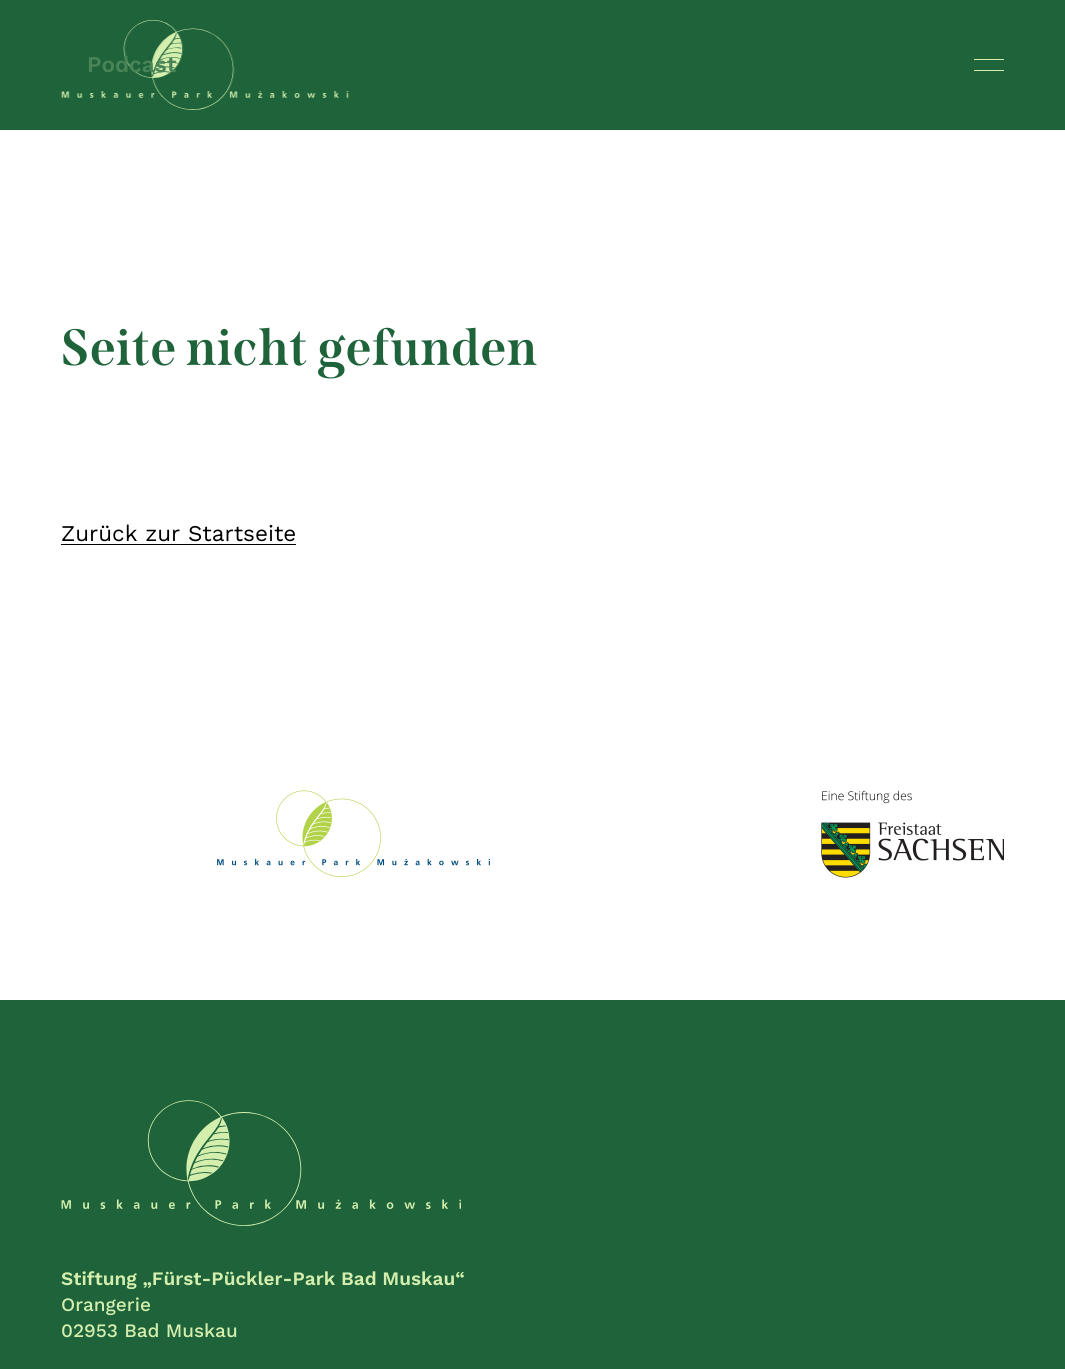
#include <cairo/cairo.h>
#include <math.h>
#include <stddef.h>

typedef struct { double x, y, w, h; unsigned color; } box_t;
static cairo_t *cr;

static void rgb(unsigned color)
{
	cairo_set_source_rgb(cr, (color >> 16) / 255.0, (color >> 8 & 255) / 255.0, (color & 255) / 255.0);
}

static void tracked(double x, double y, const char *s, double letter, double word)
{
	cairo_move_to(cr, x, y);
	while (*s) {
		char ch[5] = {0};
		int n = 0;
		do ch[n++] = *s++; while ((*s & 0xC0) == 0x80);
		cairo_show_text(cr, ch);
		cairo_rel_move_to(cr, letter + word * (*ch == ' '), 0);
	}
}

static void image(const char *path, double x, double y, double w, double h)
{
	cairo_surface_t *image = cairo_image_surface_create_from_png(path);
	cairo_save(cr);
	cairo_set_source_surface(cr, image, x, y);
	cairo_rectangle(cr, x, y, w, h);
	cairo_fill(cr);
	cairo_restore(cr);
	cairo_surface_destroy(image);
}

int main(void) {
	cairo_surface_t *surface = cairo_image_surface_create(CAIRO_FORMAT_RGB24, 1065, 1369);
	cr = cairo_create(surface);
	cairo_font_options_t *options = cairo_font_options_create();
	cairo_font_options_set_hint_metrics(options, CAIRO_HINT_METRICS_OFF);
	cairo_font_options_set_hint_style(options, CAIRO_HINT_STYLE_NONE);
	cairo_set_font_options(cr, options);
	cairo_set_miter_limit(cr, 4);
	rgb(0x1e633a);
	cairo_paint(cr);
	image("img/1.png", 61, 20, 288, 90);
	{
		static const box_t items[] = {
			{974, 59, 30, 1, 0xd3eead},
			{974, 70, 30, 1, 0xd3eead},
			{0, 130, 1065, 870, 0xffffff},
			{61, 544, 235, 1, 0x000000},
		};
		for (size_t i = 0; i < sizeof items / sizeof *items; i++) {
			rgb(items[i].color);
			cairo_rectangle(cr, items[i].x, items[i].y, items[i].w, items[i].h);
			cairo_fill(cr);
		}
	}
	image("img/2.png", 217, 790, 273, 87);
	image("img/3.png", 821, 790, 183, 88);
	image("img/4.png", 61, 1100, 400, 126);
	cairo_select_font_face(cr, "Work Sans SemiBold", CAIRO_FONT_SLANT_NORMAL, CAIRO_FONT_WEIGHT_NORMAL);
	cairo_set_font_size(cr, 22.5);
	rgb(0x498456);
	cairo_move_to(cr, 87, 72);
	cairo_show_text(cr, "Podcast");
	cairo_select_font_face(cr, "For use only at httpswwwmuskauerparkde", CAIRO_FONT_SLANT_NORMAL, CAIRO_FONT_WEIGHT_BOLD);
	cairo_set_font_size(cr, 50.75);
	rgb(0x1e633a);
	tracked(61, 365, "Seite nicht gefunden", 0.5, 0);
	cairo_select_font_face(cr, "Work Sans", CAIRO_FONT_SLANT_NORMAL, CAIRO_FONT_WEIGHT_NORMAL);
	cairo_set_font_size(cr, 22.5);
	rgb(0x000000);
	cairo_move_to(cr, 61, 541);
	cairo_show_text(cr, "Zurück zur Startseite");
	cairo_select_font_face(cr, "Work Sans SemiBold", CAIRO_FONT_SLANT_NORMAL, CAIRO_FONT_WEIGHT_NORMAL);
	cairo_set_font_size(cr, 19);
	rgb(0xd3eead);
	cairo_move_to(cr, 61, 1285);
	cairo_show_text(cr, "Stiftung „Fürst-Pückler-Park Bad Muskau“");
	cairo_select_font_face(cr, "Work Sans Medium", CAIRO_FONT_SLANT_NORMAL, CAIRO_FONT_WEIGHT_NORMAL);
	cairo_move_to(cr, 61, 1311);
	cairo_show_text(cr, "Orangerie");
	cairo_move_to(cr, 61, 1337);
	cairo_show_text(cr, "02953 Bad Muskau");
	cairo_surface_write_to_png(surface, "page.png");
	cairo_font_options_destroy(options);
	cairo_destroy(cr);
	cairo_surface_destroy(surface);
	return 0;
}
